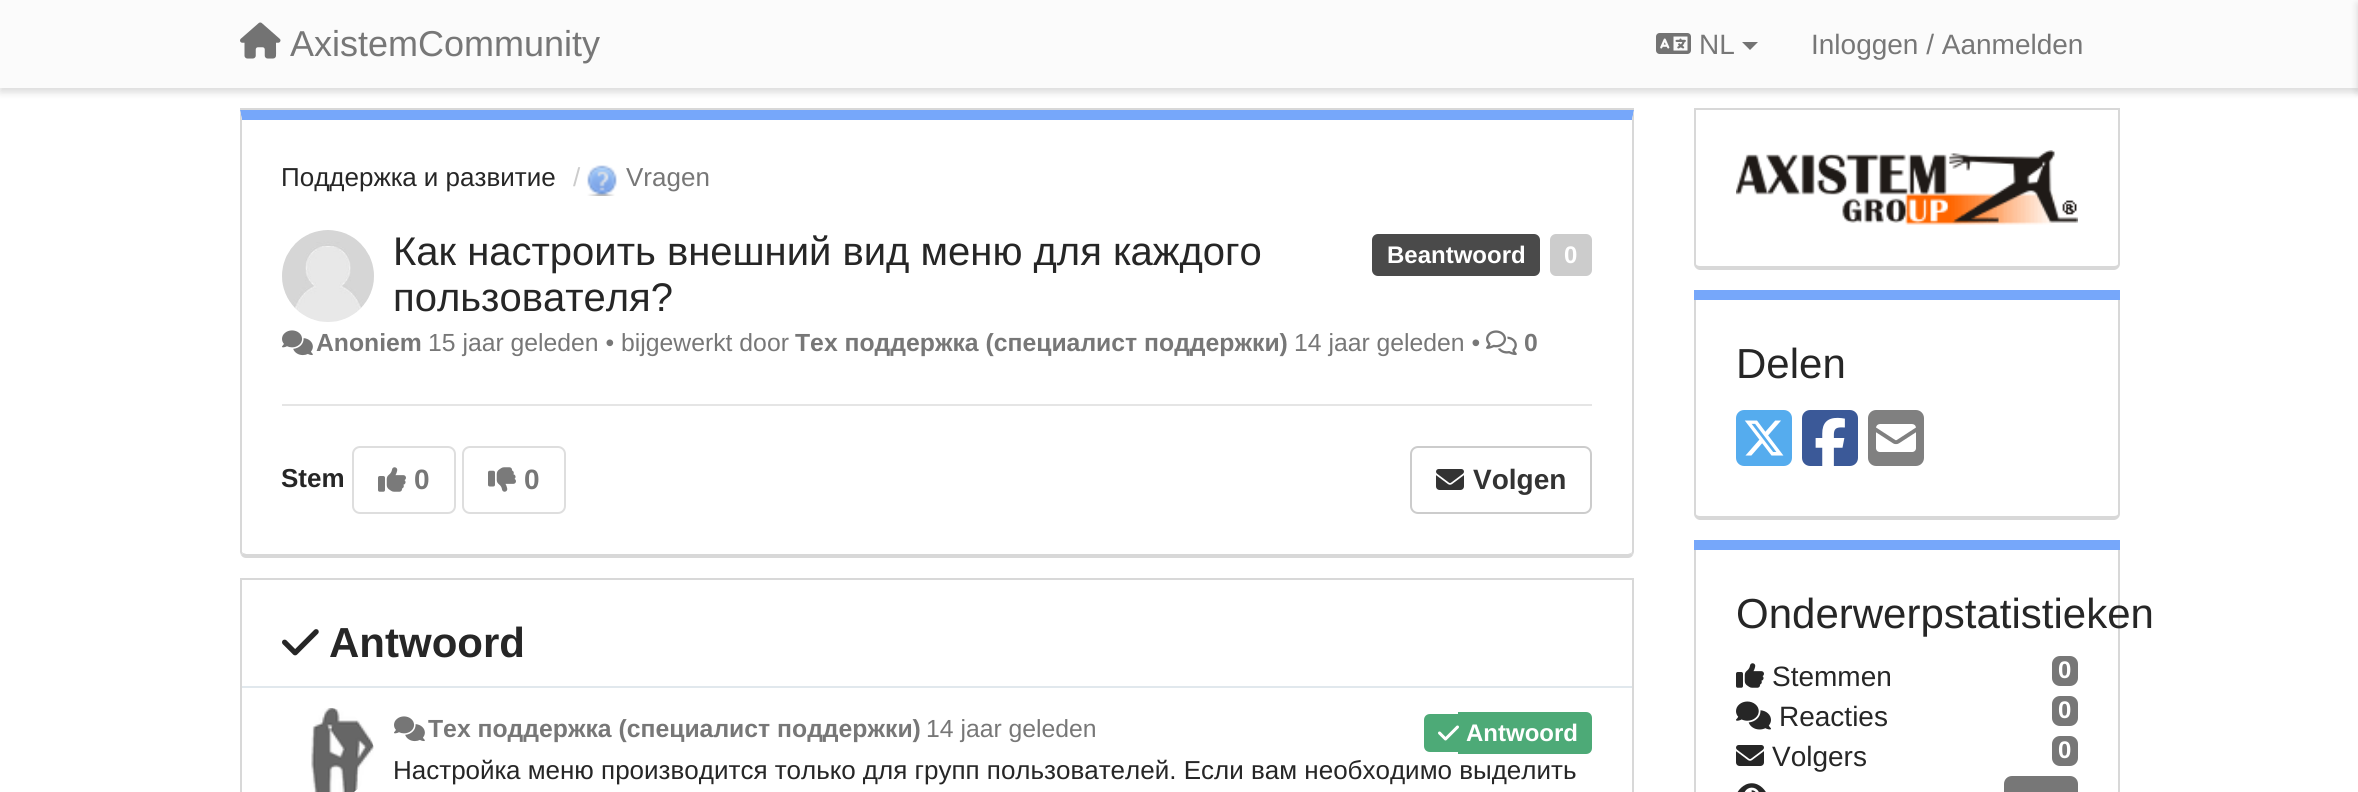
#include <cairo/cairo.h>
#include <math.h>
#include <stddef.h>

static cairo_t *cr;

static void rgb(unsigned color)
{
	cairo_set_source_rgb(cr, (color >> 16) / 255.0, (color >> 8 & 255) / 255.0, (color & 255) / 255.0);
}

static void rrect(double x, double y, double w, double h, double r)
{
	cairo_new_sub_path(cr);
	cairo_arc(cr, x + w - r, y + h - r, r, 0, M_PI / 2);
	cairo_arc(cr, x + r, y + h - r, r, M_PI / 2, M_PI);
	cairo_arc(cr, x + r, y + r, r, M_PI, 1.5 * M_PI);
	cairo_arc(cr, x + w - r, y + r, r, 1.5 * M_PI, 2 * M_PI);
	cairo_close_path(cr);
}

static void soft_shadow(double x, double y, double w, double h, double r, double blur, double alpha)
{
	cairo_push_group_with_content(cr, CAIRO_CONTENT_ALPHA);
	cairo_set_operator(cr, CAIRO_OPERATOR_SOURCE);
	for (int i = 15; i >= -15 && fmin(w, h) + blur * i / 3 > 0; i -= 2) {
		double e = blur * i / 6;
		cairo_set_source_rgba(cr, 0, 0, 0, alpha * erfc((i - 1) / 8.5) / 2);
		rrect(x - e, y - e, w + 2 * e, h + 2 * e, fmax(0, fmin(r + e + blur * .6, fmin(w, h) / 2 + e)));
		cairo_fill(cr);
	}
	cairo_pattern_t *soft = cairo_pop_group(cr);
	cairo_mask(cr, soft);
	cairo_pattern_destroy(soft);
}

static void image(const char *path, double x, double y, double w, double h)
{
	cairo_surface_t *image = cairo_image_surface_create_from_png(path);
	cairo_save(cr);
	cairo_set_source_surface(cr, image, x, y);
	cairo_rectangle(cr, x, y, w, h);
	cairo_fill(cr);
	cairo_restore(cr);
	cairo_surface_destroy(image);
}

int main(void) {
	cairo_surface_t *surface = cairo_image_surface_create(CAIRO_FORMAT_RGB24, 2358, 792);
	cr = cairo_create(surface);
	cairo_font_options_t *options = cairo_font_options_create();
	cairo_font_options_set_hint_metrics(options, CAIRO_HINT_METRICS_OFF);
	cairo_font_options_set_hint_style(options, CAIRO_HINT_STYLE_NONE);
	cairo_set_font_options(cr, options);
	cairo_set_miter_limit(cr, 4);
	rgb(0xffffff);
	cairo_paint(cr);
	rgb(0x000000);
	soft_shadow(0, 4, 2358, 88, 0, 4, 0.15);
	rgb(0xfbfbfb);
	cairo_rectangle(cr, 0, 0, 2358, 88);
	cairo_fill(cr);
	image("img/1.png", 240, 22, 41, 37);
	image("img/2.png", 1656, 33, 35, 21);
	rgb(0x737373);
	cairo_new_path(cr);
	cairo_move_to(cr, 1742, 42);
	cairo_line_to(cr, 1758, 42);
	cairo_line_to(cr, 1750, 50);
	cairo_close_path(cr);
	cairo_fill(cr);
	rgb(0x000000);
	soft_shadow(2358, 4, 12, 88, 0, 4, 0.15);
	rgb(0xd8d8d8);
	cairo_rectangle(cr, 240, 108, 1394, 2);
	cairo_fill(cr);
	rgb(0x76a7fa);
	cairo_new_path(cr);
	cairo_move_to(cr, 240, 110);
	cairo_line_to(cr, 242, 120);
	cairo_line_to(cr, 1632, 120);
	cairo_line_to(cr, 1634, 110);
	cairo_close_path(cr);
	cairo_fill(cr);
	rgb(0xd8d8d8);
	cairo_new_path(cr);
	cairo_move_to(cr, 1634, 110);
	cairo_line_to(cr, 1632, 120);
	cairo_line_to(cr, 1632, 552);
	cairo_line_to(cr, 1631, 553);
	cairo_line_to(cr, 1633, 555);
	cairo_line_to(cr, 1634, 552);
	cairo_close_path(cr);
	cairo_fill(cr);
	cairo_new_path(cr);
	cairo_move_to(cr, 246, 558);
	cairo_line_to(cr, 1628, 558);
	cairo_curve_to(cr, 1630, 558, 1632, 557, 1633, 555);
	cairo_line_to(cr, 1631, 553);
	cairo_line_to(cr, 1628, 554);
	cairo_line_to(cr, 246, 554);
	cairo_line_to(cr, 243, 553);
	cairo_line_to(cr, 241, 555);
	cairo_curve_to(cr, 242, 557, 244, 558, 246, 558);
	cairo_close_path(cr);
	cairo_fill(cr);
	cairo_new_path(cr);
	cairo_move_to(cr, 242, 120);
	cairo_line_to(cr, 240, 110);
	cairo_line_to(cr, 240, 552);
	cairo_line_to(cr, 241, 555);
	cairo_line_to(cr, 243, 553);
	cairo_line_to(cr, 242, 552);
	cairo_close_path(cr);
	cairo_fill(cr);
	image("img/3.png", 587, 165, 30, 31);
	image("img/4.png", 282, 230, 92, 92);
	rgb(0x4a4a4a);
	rrect(1372, 234, 168, 42, 6);
	cairo_fill(cr);
	rgb(0xcccccc);
	rrect(1550, 234, 42, 42, 6);
	cairo_fill(cr);
	image("img/5.png", 282, 330, 31, 26);
	image("img/6.png", 1486, 330, 31, 26);
	rgb(0xe5e5e5);
	cairo_rectangle(cr, 282, 404, 1310, 2);
	cairo_fill(cr);
	rrect(353, 447, 102, 66, 7);
	rgb(0xdedede);
	cairo_stroke(cr);
	image("img/7.png", 378, 467, 28, 25);
	rrect(463, 447, 102, 66, 7);
	cairo_stroke(cr);
	image("img/8.png", 488, 467, 28, 25);
	rrect(1411, 447, 180, 66, 7);
	rgb(0xcccccc);
	cairo_stroke(cr);
	image("img/9.png", 1436, 469, 28, 21);
	cairo_rectangle(cr, 241, 579, 1392, 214);
	rgb(0xd8d8d8);
	cairo_stroke(cr);
	image("img/10.png", 282, 629, 37, 27);
	rgb(0xe1e8ed);
	cairo_rectangle(cr, 242, 686, 1390, 2);
	cairo_fill(cr);
	image("img/11.png", 311, 708, 63, 84);
	image("img/5.png", 394, 716, 31, 26);
	rgb(0x4daa77);
	cairo_new_path(cr);
	cairo_move_to(cr, 1430, 714);
	cairo_line_to(cr, 1458, 714);
	cairo_line_to(cr, 1458, 752);
	cairo_line_to(cr, 1430, 752);
	cairo_curve_to(cr, 1426.5, 752, 1424, 749.5, 1424, 746);
	cairo_line_to(cr, 1424, 720);
	cairo_curve_to(cr, 1424, 716.5, 1426.5, 714, 1430, 714);
	cairo_close_path(cr);
	cairo_fill(cr);
	cairo_new_path(cr);
	cairo_move_to(cr, 1458, 712);
	cairo_line_to(cr, 1586, 712);
	cairo_curve_to(cr, 1589.5, 712, 1592, 714.5, 1592, 718);
	cairo_line_to(cr, 1592, 748);
	cairo_curve_to(cr, 1592, 751.5, 1589.5, 754, 1586, 754);
	cairo_line_to(cr, 1458, 754);
	cairo_close_path(cr);
	cairo_fill(cr);
	image("img/12.png", 1438, 725, 21, 16);
	rgb(0xd8d8d8);
	cairo_rectangle(cr, 1694, 108, 426, 2);
	cairo_fill(cr);
	cairo_set_fill_rule(cr, CAIRO_FILL_RULE_EVEN_ODD);
	cairo_new_path(cr);
	cairo_move_to(cr, 1694, 110);
	cairo_line_to(cr, 2120, 110);
	cairo_line_to(cr, 2120, 264);
	cairo_curve_to(cr, 2120, 267, 2117, 270, 2114, 270);
	cairo_line_to(cr, 1700, 270);
	cairo_curve_to(cr, 1697, 270, 1694, 267, 1694, 264);
	cairo_close_path(cr);
	cairo_move_to(cr, 1696, 110);
	cairo_line_to(cr, 2118, 110);
	cairo_line_to(cr, 2118, 264);
	cairo_curve_to(cr, 2118, 265, 2116, 266, 2114, 266);
	cairo_line_to(cr, 1700, 266);
	cairo_curve_to(cr, 1698, 266, 1696, 265, 1696, 264);
	cairo_close_path(cr);
	cairo_fill(cr);
	image("img/13.png", 1736, 150, 342, 75);
	rgb(0x76a7fa);
	cairo_rectangle(cr, 1694, 290, 426, 10);
	cairo_fill(cr);
	rgb(0xd8d8d8);
	cairo_new_path(cr);
	cairo_move_to(cr, 1694, 300);
	cairo_line_to(cr, 2120, 300);
	cairo_line_to(cr, 2120, 514);
	cairo_curve_to(cr, 2120, 517, 2117, 520, 2114, 520);
	cairo_line_to(cr, 1700, 520);
	cairo_curve_to(cr, 1697, 520, 1694, 517, 1694, 514);
	cairo_close_path(cr);
	cairo_move_to(cr, 1696, 300);
	cairo_line_to(cr, 2118, 300);
	cairo_line_to(cr, 2118, 514);
	cairo_curve_to(cr, 2118, 515, 2116, 516, 2114, 516);
	cairo_line_to(cr, 1700, 516);
	cairo_curve_to(cr, 1698, 516, 1696, 515, 1696, 514);
	cairo_close_path(cr);
	cairo_fill(cr);
	image("img/14.png", 1736, 410, 56, 56);
	image("img/15.png", 1802, 410, 56, 56);
	image("img/16.png", 1868, 410, 56, 56);
	rgb(0x76a7fa);
	cairo_rectangle(cr, 1694, 540, 426, 10);
	cairo_fill(cr);
	rgb(0xd8d8d8);
	cairo_new_path(cr);
	cairo_move_to(cr, 1694, 550);
	cairo_line_to(cr, 2120, 550);
	cairo_line_to(cr, 2120, 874);
	cairo_curve_to(cr, 2120, 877, 2117, 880, 2114, 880);
	cairo_line_to(cr, 1700, 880);
	cairo_curve_to(cr, 1697, 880, 1694, 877, 1694, 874);
	cairo_close_path(cr);
	cairo_move_to(cr, 1696, 550);
	cairo_line_to(cr, 2118, 550);
	cairo_line_to(cr, 2118, 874);
	cairo_curve_to(cr, 2118, 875, 2116, 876, 2114, 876);
	cairo_line_to(cr, 1700, 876);
	cairo_curve_to(cr, 1698, 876, 1696, 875, 1696, 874);
	cairo_close_path(cr);
	cairo_fill(cr);
	image("img/17.png", 1736, 663, 28, 25);
	rgb(0x777777);
	rrect(2052, 656, 26, 30, 8);
	cairo_fill(cr);
	image("img/18.png", 1736, 701, 35, 29);
	rrect(2052, 696, 26, 30, 8);
	cairo_fill(cr);
	image("img/19.png", 1736, 745, 28, 21);
	rrect(2052, 736, 26, 30, 8);
	cairo_fill(cr);
	image("img/20.png", 1737, 783, 29, 9);
	cairo_new_path(cr);
	cairo_move_to(cr, 2012, 776);
	cairo_line_to(cr, 2070, 776);
	cairo_curve_to(cr, 2074.5, 776, 2078, 779.5, 2078, 784);
	cairo_line_to(cr, 2078, 792);
	cairo_line_to(cr, 2004, 792);
	cairo_line_to(cr, 2004, 784);
	cairo_curve_to(cr, 2004, 779.5, 2007.5, 776, 2012, 776);
	cairo_close_path(cr);
	cairo_fill(cr);
	cairo_select_font_face(cr, "Liberation Sans", CAIRO_FONT_SLANT_NORMAL, CAIRO_FONT_WEIGHT_NORMAL);
	cairo_set_font_size(cr, 36);
	cairo_move_to(cr, 290, 56);
	cairo_show_text(cr, "AxistemCommunity");
	cairo_set_font_size(cr, 28);
	cairo_move_to(cr, 1699, 54);
	cairo_show_text(cr, "NL");
	cairo_move_to(cr, 1811, 54);
	cairo_show_text(cr, "Inloggen / Aanmelden");
	cairo_set_font_size(cr, 26);
	rgb(0x262626);
	cairo_move_to(cr, 281, 186);
	cairo_show_text(cr, "Поддержка и развитие");
	rgb(0xcccccc);
	cairo_move_to(cr, 573, 186);
	cairo_show_text(cr, "/");
	rgb(0x777777);
	cairo_move_to(cr, 626, 186);
	cairo_show_text(cr, "Vragen");
	cairo_set_font_size(cr, 40);
	rgb(0x262626);
	cairo_move_to(cr, 393, 265);
	cairo_show_text(cr, "Как настроить внешний вид меню для каждого");
	cairo_move_to(cr, 393, 311);
	cairo_show_text(cr, "пользователя?");
	cairo_select_font_face(cr, "Liberation Sans", CAIRO_FONT_SLANT_NORMAL, CAIRO_FONT_WEIGHT_BOLD);
	cairo_set_font_size(cr, 24);
	rgb(0xffffff);
	cairo_move_to(cr, 1387, 263);
	cairo_show_text(cr, "Beantwoord");
	cairo_move_to(cr, 1564, 263);
	cairo_show_text(cr, "0");
	cairo_set_font_size(cr, 24.75);
	rgb(0x777777);
	cairo_move_to(cr, 316, 351);
	cairo_show_text(cr, "Anoniem");
	cairo_select_font_face(cr, "Liberation Sans", CAIRO_FONT_SLANT_NORMAL, CAIRO_FONT_WEIGHT_NORMAL);
	cairo_move_to(cr, 428, 351);
	cairo_show_text(cr, "15 jaar geleden • bijgewerkt door");
	cairo_select_font_face(cr, "Liberation Sans", CAIRO_FONT_SLANT_NORMAL, CAIRO_FONT_WEIGHT_BOLD);
	cairo_move_to(cr, 795, 351);
	cairo_show_text(cr, "Тех поддержка (специалист поддержки)");
	cairo_select_font_face(cr, "Liberation Sans", CAIRO_FONT_SLANT_NORMAL, CAIRO_FONT_WEIGHT_NORMAL);
	cairo_move_to(cr, 1294, 351);
	cairo_show_text(cr, "14 jaar geleden •");
	cairo_select_font_face(cr, "Liberation Sans", CAIRO_FONT_SLANT_NORMAL, CAIRO_FONT_WEIGHT_BOLD);
	cairo_move_to(cr, 1524, 351);
	cairo_show_text(cr, "0");
	cairo_set_font_size(cr, 26);
	rgb(0x262626);
	cairo_move_to(cr, 281, 487);
	cairo_show_text(cr, "Stem");
	cairo_set_font_size(cr, 28);
	rgb(0x777777);
	cairo_move_to(cr, 414, 489);
	cairo_show_text(cr, "0");
	cairo_move_to(cr, 524, 489);
	cairo_show_text(cr, "0");
	rgb(0x333333);
	cairo_move_to(cr, 1473, 489);
	cairo_show_text(cr, "Volgen");
	cairo_set_font_size(cr, 42);
	rgb(0x262626);
	cairo_move_to(cr, 329, 657);
	cairo_show_text(cr, "Antwoord");
	cairo_set_font_size(cr, 24.75);
	rgb(0x777777);
	cairo_move_to(cr, 428, 737);
	cairo_show_text(cr, "Тех поддержка (специалист поддержки)");
	cairo_select_font_face(cr, "Liberation Sans", CAIRO_FONT_SLANT_NORMAL, CAIRO_FONT_WEIGHT_NORMAL);
	cairo_move_to(cr, 926, 737);
	cairo_show_text(cr, "14 jaar geleden");
	cairo_select_font_face(cr, "Liberation Sans", CAIRO_FONT_SLANT_NORMAL, CAIRO_FONT_WEIGHT_BOLD);
	cairo_set_font_size(cr, 24);
	rgb(0xffffff);
	cairo_move_to(cr, 1466, 741);
	cairo_show_text(cr, "Antwoord");
	cairo_select_font_face(cr, "Liberation Sans", CAIRO_FONT_SLANT_NORMAL, CAIRO_FONT_WEIGHT_NORMAL);
	cairo_set_font_size(cr, 26);
	rgb(0x262626);
	cairo_move_to(cr, 393, 779);
	cairo_show_text(cr, "Настройка меню производится только для групп пользователей. Если вам необходимо выделить");
	cairo_set_font_size(cr, 42);
	cairo_move_to(cr, 1736, 378);
	cairo_show_text(cr, "Delen");
	cairo_move_to(cr, 1736, 628);
	cairo_show_text(cr, "Onderwerpstatistieken");
	cairo_set_font_size(cr, 28);
	cairo_move_to(cr, 1772, 686);
	cairo_show_text(cr, "Stemmen");
	cairo_select_font_face(cr, "Liberation Sans", CAIRO_FONT_SLANT_NORMAL, CAIRO_FONT_WEIGHT_BOLD);
	cairo_set_font_size(cr, 24);
	rgb(0xffffff);
	cairo_move_to(cr, 2058, 678);
	cairo_show_text(cr, "0");
	cairo_select_font_face(cr, "Liberation Sans", CAIRO_FONT_SLANT_NORMAL, CAIRO_FONT_WEIGHT_NORMAL);
	cairo_set_font_size(cr, 28);
	rgb(0x262626);
	cairo_move_to(cr, 1779, 726);
	cairo_show_text(cr, "Reacties");
	cairo_select_font_face(cr, "Liberation Sans", CAIRO_FONT_SLANT_NORMAL, CAIRO_FONT_WEIGHT_BOLD);
	cairo_set_font_size(cr, 24);
	rgb(0xffffff);
	cairo_move_to(cr, 2058, 718);
	cairo_show_text(cr, "0");
	cairo_select_font_face(cr, "Liberation Sans", CAIRO_FONT_SLANT_NORMAL, CAIRO_FONT_WEIGHT_NORMAL);
	cairo_set_font_size(cr, 28);
	rgb(0x262626);
	cairo_move_to(cr, 1772, 766);
	cairo_show_text(cr, "Volgers");
	cairo_select_font_face(cr, "Liberation Sans", CAIRO_FONT_SLANT_NORMAL, CAIRO_FONT_WEIGHT_BOLD);
	cairo_set_font_size(cr, 24);
	rgb(0xffffff);
	cairo_move_to(cr, 2058, 758);
	cairo_show_text(cr, "0");
	cairo_surface_write_to_png(surface, "page.png");
	cairo_font_options_destroy(options);
	cairo_destroy(cr);
	cairo_surface_destroy(surface);
	return 0;
}
